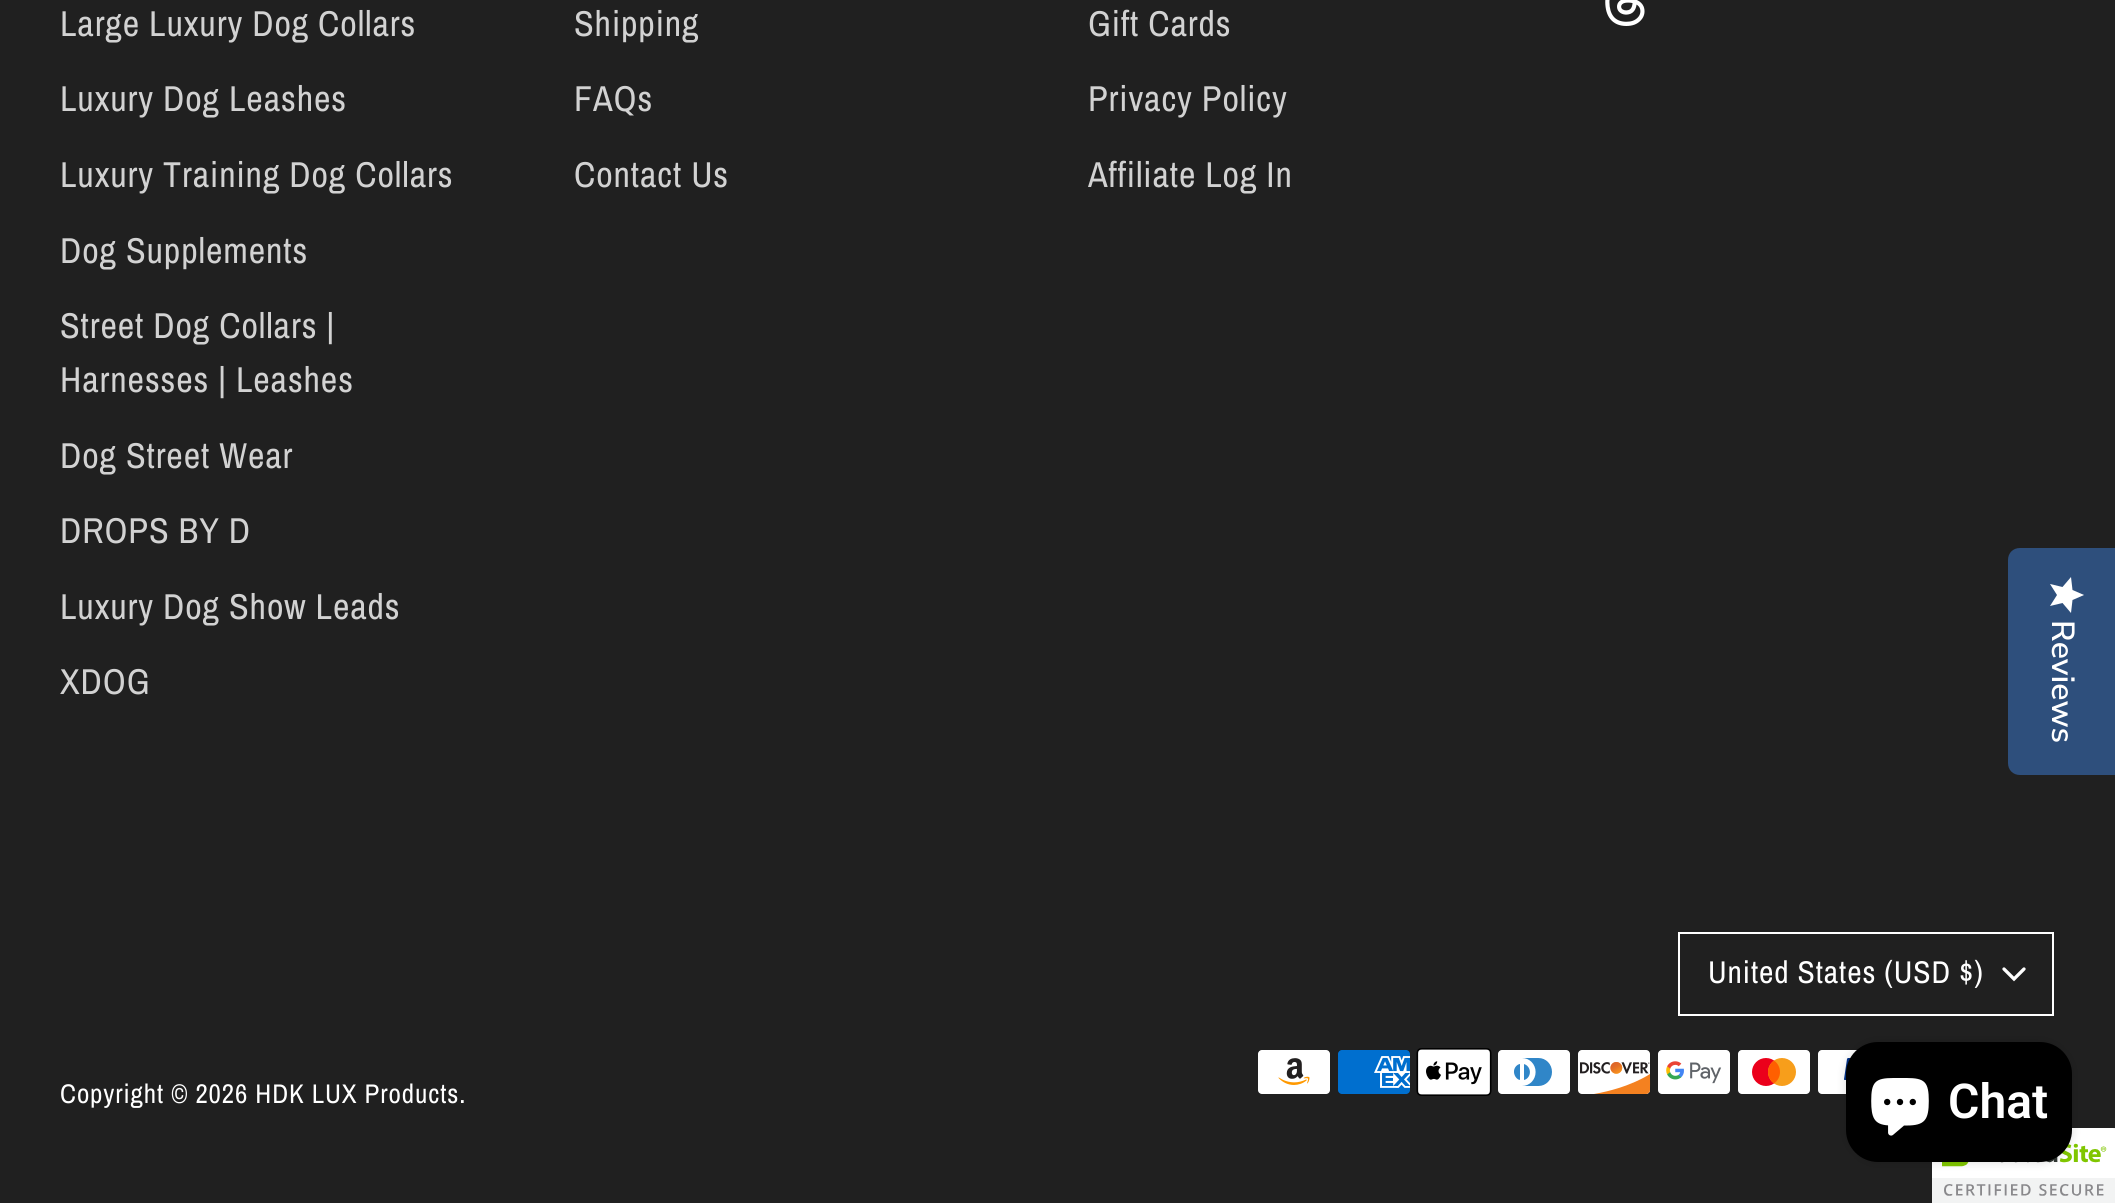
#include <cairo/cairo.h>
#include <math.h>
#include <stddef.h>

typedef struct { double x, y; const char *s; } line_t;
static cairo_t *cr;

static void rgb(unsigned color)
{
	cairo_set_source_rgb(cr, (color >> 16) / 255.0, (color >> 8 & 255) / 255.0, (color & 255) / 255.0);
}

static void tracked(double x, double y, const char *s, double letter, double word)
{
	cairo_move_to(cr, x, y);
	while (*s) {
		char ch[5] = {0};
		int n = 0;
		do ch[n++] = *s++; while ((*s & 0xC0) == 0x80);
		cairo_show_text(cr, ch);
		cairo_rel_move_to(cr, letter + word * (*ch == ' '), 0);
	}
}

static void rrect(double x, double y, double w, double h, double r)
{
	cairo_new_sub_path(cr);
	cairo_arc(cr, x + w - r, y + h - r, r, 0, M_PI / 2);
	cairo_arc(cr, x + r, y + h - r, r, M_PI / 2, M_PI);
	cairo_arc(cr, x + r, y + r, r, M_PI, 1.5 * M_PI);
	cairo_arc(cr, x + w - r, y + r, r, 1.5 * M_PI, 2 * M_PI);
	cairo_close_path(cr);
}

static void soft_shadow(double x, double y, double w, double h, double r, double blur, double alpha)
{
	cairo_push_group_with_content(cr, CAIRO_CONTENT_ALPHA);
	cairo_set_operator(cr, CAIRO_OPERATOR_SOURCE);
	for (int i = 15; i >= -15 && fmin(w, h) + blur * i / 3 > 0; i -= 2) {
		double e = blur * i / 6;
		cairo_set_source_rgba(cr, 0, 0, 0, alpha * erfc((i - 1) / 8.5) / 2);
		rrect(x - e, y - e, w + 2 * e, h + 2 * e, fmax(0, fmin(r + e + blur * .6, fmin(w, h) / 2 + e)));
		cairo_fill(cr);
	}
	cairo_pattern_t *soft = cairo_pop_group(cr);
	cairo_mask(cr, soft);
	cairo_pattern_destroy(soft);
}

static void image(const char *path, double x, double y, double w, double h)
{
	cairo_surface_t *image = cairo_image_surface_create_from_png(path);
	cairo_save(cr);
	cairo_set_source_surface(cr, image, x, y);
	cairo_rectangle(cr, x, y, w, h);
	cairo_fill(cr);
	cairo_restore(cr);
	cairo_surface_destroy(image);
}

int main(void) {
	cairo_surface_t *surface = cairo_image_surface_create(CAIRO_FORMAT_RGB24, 2115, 1203);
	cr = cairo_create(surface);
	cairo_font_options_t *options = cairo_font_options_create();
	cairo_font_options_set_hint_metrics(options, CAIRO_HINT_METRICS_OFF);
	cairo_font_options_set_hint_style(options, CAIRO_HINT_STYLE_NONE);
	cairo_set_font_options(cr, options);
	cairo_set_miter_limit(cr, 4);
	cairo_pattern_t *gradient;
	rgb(0x202020);
	cairo_paint(cr);
	image("img/1.png", 1605, 0, 40, 26);
	cairo_rectangle(cr, 1679, 933, 374, 82);
	rgb(0xffffff);
	cairo_stroke(cr);
	cairo_new_path(cr);
	cairo_move_to(cr, 2004, 969);
	cairo_line_to(cr, 2014, 979);
	cairo_line_to(cr, 2024, 969);
	cairo_set_line_width(cr, 3.3);
	cairo_set_line_cap(cr, CAIRO_LINE_CAP_ROUND);
	cairo_stroke(cr);
	image("img/2.png", 1258, 1050, 72, 44);
	image("img/3.png", 1338, 1050, 72, 44);
	image("img/4.png", 1416, 1048, 76, 48);
	image("img/5.png", 1498, 1050, 72, 44);
	image("img/6.png", 1578, 1050, 73, 44);
	image("img/7.png", 1658, 1050, 72, 44);
	image("img/8.png", 1738, 1050, 72, 44);
	image("img/9.png", 1818, 1050, 39, 44);
	rgb(0x2e4f7c);
	cairo_new_path(cr);
	cairo_move_to(cr, 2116, 548);
	cairo_line_to(cr, 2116, 775);
	cairo_line_to(cr, 2020, 775);
	cairo_curve_to(cr, 2013, 775, 2008, 770, 2008, 763);
	cairo_line_to(cr, 2008, 560);
	cairo_curve_to(cr, 2008, 553, 2013, 548, 2020, 548);
	cairo_close_path(cr);
	cairo_fill(cr);
	gradient = cairo_pattern_create_linear(2084, 577, 2084, 613);
	cairo_pattern_add_color_stop_rgba(gradient, 1, 1, 1, 1, 1);
	cairo_pattern_add_color_stop_rgba(gradient, 1, 0.918, 0.918, 0.918, 1);
	cairo_set_source(cr, gradient);
	cairo_pattern_destroy(gradient);
	cairo_new_path(cr);
	cairo_move_to(cr, 2057, 595);
	cairo_line_to(cr, 2050, 606);
	cairo_line_to(cr, 2062.5, 603);
	cairo_line_to(cr, 2071, 613);
	cairo_line_to(cr, 2072.5, 600);
	cairo_line_to(cr, 2084, 595);
	cairo_line_to(cr, 2072.5, 590);
	cairo_line_to(cr, 2071, 577);
	cairo_line_to(cr, 2062.5, 587);
	cairo_line_to(cr, 2050, 584);
	cairo_close_path(cr);
	cairo_fill(cr);
	rgb(0xffffff);
	cairo_rectangle(cr, 2112, 1128, 3, 2);
	cairo_fill(cr);
	image("img/11.png", 1932, 1128, 183, 75);
	rgb(0x000000);
	soft_shadow(1846, 1042, 226, 120, 32, 5, 0.15);
	rgb(0x000000);
	rrect(1846, 1042, 226, 120, 32);
	cairo_fill(cr);
	image("img/10.png", 1871, 1078, 58, 58);
	cairo_select_font_face(cr, "Archivo Narrow", CAIRO_FONT_SLANT_NORMAL, CAIRO_FONT_WEIGHT_NORMAL);
	cairo_set_font_size(cr, 36);
	rgb(0xd2d2d2);
	{
		static const line_t items[] = {
			{60, 36, "Large Luxury Dog Collars"},
			{60, 111, "Luxury Dog Leashes"},
			{60, 187, "Luxury Training Dog Collars"},
			{60, 263, "Dog Supplements"},
			{60, 338, "Street Dog Collars |"},
			{60, 392, "Harnesses | Leashes"},
			{60, 468, "Dog Street Wear"},
			{60, 543, "DROPS BY D"},
			{60, 619, "Luxury Dog Show Leads"},
			{60, 694, "XDOG"},
			{574, 36, "Shipping"},
			{574, 111, "FAQs"},
			{574, 187, "Contact Us"},
			{1088, 36, "Gift Cards"},
			{1088, 111, "Privacy Policy"},
			{1088, 187, "Affiliate Log In"},
		};
		for (size_t i = 0; i < sizeof items / sizeof *items; i++) {
			tracked(items[i].x, items[i].y, items[i].s, 0.9, 0);
		}
	}
	cairo_set_font_size(cr, 31.5);
	rgb(0xffffff);
	tracked(1708, 983, "United States (USD $)", 0.9, 0);
	cairo_set_font_size(cr, 27);
	tracked(60, 1103, "Copyright © 2026 HDK LUX Products.", 0.9, 0);
	cairo_select_font_face(cr, "Nunito Sans ExtraLight", CAIRO_FONT_SLANT_NORMAL, CAIRO_FONT_WEIGHT_NORMAL);
	cairo_set_font_size(cr, 32);
	cairo_save(cr);
	cairo_translate(cr, 2052, 620);
	cairo_rotate(cr, 90 * M_PI / 180);
	cairo_move_to(cr, 0, 0);
	cairo_show_text(cr, "Reviews");
	cairo_restore(cr);
	cairo_select_font_face(cr, "Roboto SemiBold", CAIRO_FONT_SLANT_NORMAL, CAIRO_FONT_WEIGHT_NORMAL);
	cairo_set_font_size(cr, 48);
	cairo_move_to(cr, 1948, 1118);
	cairo_show_text(cr, "Chat");
	cairo_surface_write_to_png(surface, "page.png");
	cairo_font_options_destroy(options);
	cairo_destroy(cr);
	cairo_surface_destroy(surface);
	return 0;
}
